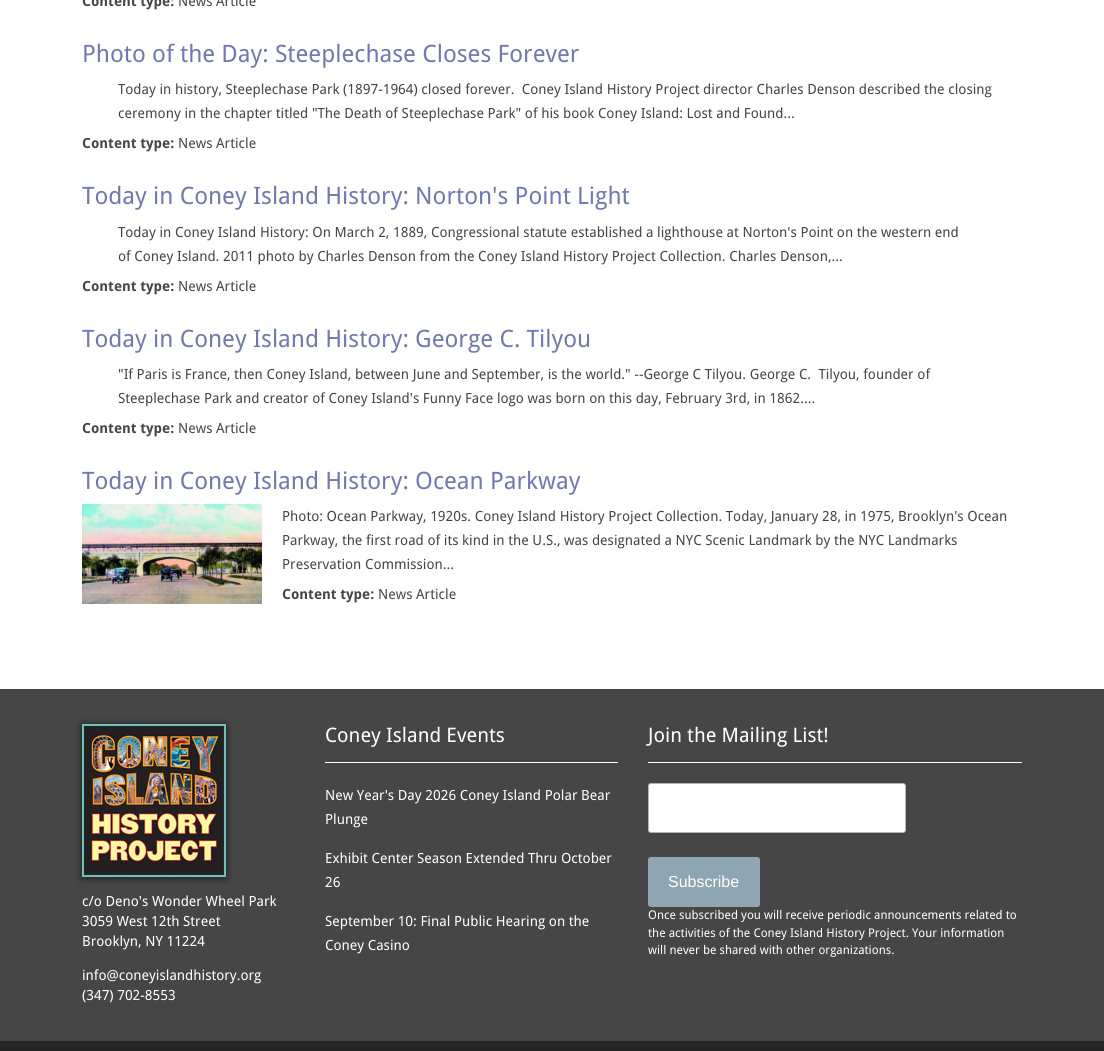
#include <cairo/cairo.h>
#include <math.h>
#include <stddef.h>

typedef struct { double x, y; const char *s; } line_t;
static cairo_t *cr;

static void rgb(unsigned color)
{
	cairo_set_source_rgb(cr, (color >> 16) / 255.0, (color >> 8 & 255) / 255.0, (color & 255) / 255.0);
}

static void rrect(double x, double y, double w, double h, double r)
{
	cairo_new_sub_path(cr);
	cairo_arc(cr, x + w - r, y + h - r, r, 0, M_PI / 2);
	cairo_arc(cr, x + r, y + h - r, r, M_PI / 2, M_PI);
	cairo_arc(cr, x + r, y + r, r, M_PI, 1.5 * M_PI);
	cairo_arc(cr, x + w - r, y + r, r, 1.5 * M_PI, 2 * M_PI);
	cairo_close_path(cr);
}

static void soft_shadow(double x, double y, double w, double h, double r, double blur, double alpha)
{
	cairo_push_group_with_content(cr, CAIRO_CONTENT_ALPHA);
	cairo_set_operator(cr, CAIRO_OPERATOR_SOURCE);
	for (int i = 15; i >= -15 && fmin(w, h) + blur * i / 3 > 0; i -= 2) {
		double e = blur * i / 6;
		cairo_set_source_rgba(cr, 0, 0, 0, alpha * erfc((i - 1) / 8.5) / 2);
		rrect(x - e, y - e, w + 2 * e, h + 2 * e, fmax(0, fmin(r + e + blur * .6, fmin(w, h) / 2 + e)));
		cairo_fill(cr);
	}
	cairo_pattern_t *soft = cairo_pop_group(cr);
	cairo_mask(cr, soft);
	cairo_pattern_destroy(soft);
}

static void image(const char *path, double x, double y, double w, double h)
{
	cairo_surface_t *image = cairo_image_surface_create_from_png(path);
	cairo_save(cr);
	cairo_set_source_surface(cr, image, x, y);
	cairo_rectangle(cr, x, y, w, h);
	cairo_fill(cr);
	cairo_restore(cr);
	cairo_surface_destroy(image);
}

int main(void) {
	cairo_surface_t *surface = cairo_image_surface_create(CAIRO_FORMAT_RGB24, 1104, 1051);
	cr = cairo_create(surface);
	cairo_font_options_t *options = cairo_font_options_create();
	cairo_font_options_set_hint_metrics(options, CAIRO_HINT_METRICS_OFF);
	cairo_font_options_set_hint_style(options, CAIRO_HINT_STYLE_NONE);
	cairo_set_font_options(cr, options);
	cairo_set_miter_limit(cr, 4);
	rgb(0xffffff);
	cairo_paint(cr);
	image("img/1.png", 82, 504, 180, 100);
	rgb(0x464646);
	cairo_rectangle(cr, 0, 689, 1104, 352);
	cairo_fill(cr);
	rgb(0x000000);
	soft_shadow(82, 725, 144, 153, 0, 4, 0.66);
	image("img/2.png", 82, 724, 144, 153);
	rgb(0xffffff);
	cairo_rectangle(cr, 325, 762, 293, 1);
	cairo_fill(cr);
	cairo_rectangle(cr, 648, 762, 374, 1);
	cairo_fill(cr);
	rrect(648.5, 783.5, 257, 49, 2.5);
	cairo_fill_preserve(cr);
	rgb(0xb0b6bb);
	cairo_set_line_width(cr, 1);
	cairo_stroke(cr);
	rgb(0x8ea6b2);
	rrect(648.5, 857.5, 111, 49, 2.5);
	cairo_fill_preserve(cr);
	cairo_stroke(cr);
	rgb(0x252525);
	cairo_rectangle(cr, 0, 1041, 1104, 10);
	cairo_fill(cr);
	cairo_select_font_face(cr, "Droid Sans", CAIRO_FONT_SLANT_NORMAL, CAIRO_FONT_WEIGHT_BOLD);
	cairo_set_font_size(cr, 14);
	rgb(0x464646);
	cairo_move_to(cr, 82, 6);
	cairo_show_text(cr, "Content type:");
	cairo_select_font_face(cr, "Droid Sans", CAIRO_FONT_SLANT_NORMAL, CAIRO_FONT_WEIGHT_NORMAL);
	cairo_move_to(cr, 178, 6);
	cairo_show_text(cr, "News Article");
	cairo_set_font_size(cr, 24);
	rgb(0x7079b0);
	cairo_move_to(cr, 82, 62);
	cairo_show_text(cr, "Photo of the Day: Steeplechase Closes Forever");
	cairo_set_font_size(cr, 14);
	rgb(0x464646);
	cairo_move_to(cr, 118, 94);
	cairo_show_text(cr, "Today in history, Steeplechase Park (1897-1964) closed forever.  Coney Island History Project director Charles Denson described the closing");
	cairo_move_to(cr, 118, 118);
	cairo_show_text(cr, "ceremony in the chapter titled \"The Death of Steeplechase Park\" of his book Coney Island: Lost and Found...");
	cairo_select_font_face(cr, "Droid Sans", CAIRO_FONT_SLANT_NORMAL, CAIRO_FONT_WEIGHT_BOLD);
	cairo_move_to(cr, 82, 148);
	cairo_show_text(cr, "Content type:");
	cairo_select_font_face(cr, "Droid Sans", CAIRO_FONT_SLANT_NORMAL, CAIRO_FONT_WEIGHT_NORMAL);
	cairo_move_to(cr, 178, 148);
	cairo_show_text(cr, "News Article");
	cairo_set_font_size(cr, 24);
	rgb(0x7079b0);
	cairo_move_to(cr, 82, 204);
	cairo_show_text(cr, "Today in Coney Island History: Norton's Point Light");
	cairo_set_font_size(cr, 14);
	rgb(0x464646);
	cairo_move_to(cr, 118, 237);
	cairo_show_text(cr, "Today in Coney Island History: On March 2, 1889, Congressional statute established a lighthouse at Norton's Point on the western end");
	cairo_move_to(cr, 118, 261);
	cairo_show_text(cr, "of Coney Island. 2011 photo by Charles Denson from the Coney Island History Project Collection. Charles Denson,...");
	cairo_select_font_face(cr, "Droid Sans", CAIRO_FONT_SLANT_NORMAL, CAIRO_FONT_WEIGHT_BOLD);
	cairo_move_to(cr, 82, 291);
	cairo_show_text(cr, "Content type:");
	cairo_select_font_face(cr, "Droid Sans", CAIRO_FONT_SLANT_NORMAL, CAIRO_FONT_WEIGHT_NORMAL);
	cairo_move_to(cr, 178, 291);
	cairo_show_text(cr, "News Article");
	cairo_set_font_size(cr, 24);
	rgb(0x7079b0);
	cairo_move_to(cr, 82, 347);
	cairo_show_text(cr, "Today in Coney Island History: George C. Tilyou");
	cairo_set_font_size(cr, 14);
	rgb(0x464646);
	cairo_move_to(cr, 118, 379);
	cairo_show_text(cr, "\"If Paris is France, then Coney Island, between June and September, is the world.\" --George C Tilyou. George C.  Tilyou, founder of");
	cairo_move_to(cr, 118, 403);
	cairo_show_text(cr, "Steeplechase Park and creator of Coney Island's Funny Face logo was born on this day, February 3rd, in 1862....");
	cairo_select_font_face(cr, "Droid Sans", CAIRO_FONT_SLANT_NORMAL, CAIRO_FONT_WEIGHT_BOLD);
	cairo_move_to(cr, 82, 433);
	cairo_show_text(cr, "Content type:");
	cairo_select_font_face(cr, "Droid Sans", CAIRO_FONT_SLANT_NORMAL, CAIRO_FONT_WEIGHT_NORMAL);
	cairo_move_to(cr, 178, 433);
	cairo_show_text(cr, "News Article");
	cairo_set_font_size(cr, 24);
	rgb(0x7079b0);
	cairo_move_to(cr, 82, 489);
	cairo_show_text(cr, "Today in Coney Island History: Ocean Parkway");
	cairo_set_font_size(cr, 14);
	rgb(0x464646);
	{
		static const line_t items[] = {
			{282, 521, "Photo: Ocean Parkway, 1920s. Coney Island History Project Collection. Today, January 28, in 1975, Brooklyn's Ocean"},
			{282, 545, "Parkway, the first road of its kind in the U.S., was designated a NYC Scenic Landmark by the NYC Landmarks"},
			{282, 569, "Preservation Commission..."},
		};
		for (size_t i = 0; i < sizeof items / sizeof *items; i++) {
			cairo_move_to(cr, items[i].x, items[i].y);
			cairo_show_text(cr, items[i].s);
		}
	}
	cairo_select_font_face(cr, "Droid Sans", CAIRO_FONT_SLANT_NORMAL, CAIRO_FONT_WEIGHT_BOLD);
	cairo_move_to(cr, 282, 599);
	cairo_show_text(cr, "Content type:");
	cairo_select_font_face(cr, "Droid Sans", CAIRO_FONT_SLANT_NORMAL, CAIRO_FONT_WEIGHT_NORMAL);
	cairo_move_to(cr, 378, 599);
	cairo_show_text(cr, "News Article");
	rgb(0xffffff);
	{
		static const line_t items[] = {
			{82, 906, "c/o Deno's Wonder Wheel Park"},
			{82, 926, "3059 West 12th Street"},
			{82, 946, "Brooklyn, NY 11224"},
			{82, 980, "info@coneyislandhistory.org"},
			{82, 1000, "(347) 702-8553"},
		};
		for (size_t i = 0; i < sizeof items / sizeof *items; i++) {
			cairo_move_to(cr, items[i].x, items[i].y);
			cairo_show_text(cr, items[i].s);
		}
	}
	cairo_set_font_size(cr, 20);
	cairo_move_to(cr, 325, 742);
	cairo_show_text(cr, "Coney Island Events");
	cairo_set_font_size(cr, 14);
	{
		static const line_t items[] = {
			{325, 800, "New Year's Day 2026 Coney Island Polar Bear"},
			{325, 824, "Plunge"},
			{325, 863, "Exhibit Center Season Extended Thru October"},
			{325, 887, "26"},
			{325, 926, "September 10: Final Public Hearing on the"},
			{325, 950, "Coney Casino"},
		};
		for (size_t i = 0; i < sizeof items / sizeof *items; i++) {
			cairo_move_to(cr, items[i].x, items[i].y);
			cairo_show_text(cr, items[i].s);
		}
	}
	cairo_set_font_size(cr, 20);
	cairo_move_to(cr, 648, 742);
	cairo_show_text(cr, "Join the Mailing List!");
	cairo_select_font_face(cr, "Liberation Sans", CAIRO_FONT_SLANT_NORMAL, CAIRO_FONT_WEIGHT_NORMAL);
	cairo_set_font_size(cr, 16);
	cairo_move_to(cr, 668, 887);
	cairo_show_text(cr, "Subscribe");
	cairo_select_font_face(cr, "Droid Sans", CAIRO_FONT_SLANT_NORMAL, CAIRO_FONT_WEIGHT_NORMAL);
	cairo_set_font_size(cr, 12);
	{
		static const line_t items[] = {
			{648, 919, "Once subscribed you will receive periodic announcements related to"},
			{648, 937, "the activities of the Coney Island History Project. Your information"},
			{648, 954, "will never be shared with other organizations."},
		};
		for (size_t i = 0; i < sizeof items / sizeof *items; i++) {
			cairo_move_to(cr, items[i].x, items[i].y);
			cairo_show_text(cr, items[i].s);
		}
	}
	cairo_surface_write_to_png(surface, "page.png");
	cairo_font_options_destroy(options);
	cairo_destroy(cr);
	cairo_surface_destroy(surface);
	return 0;
}
